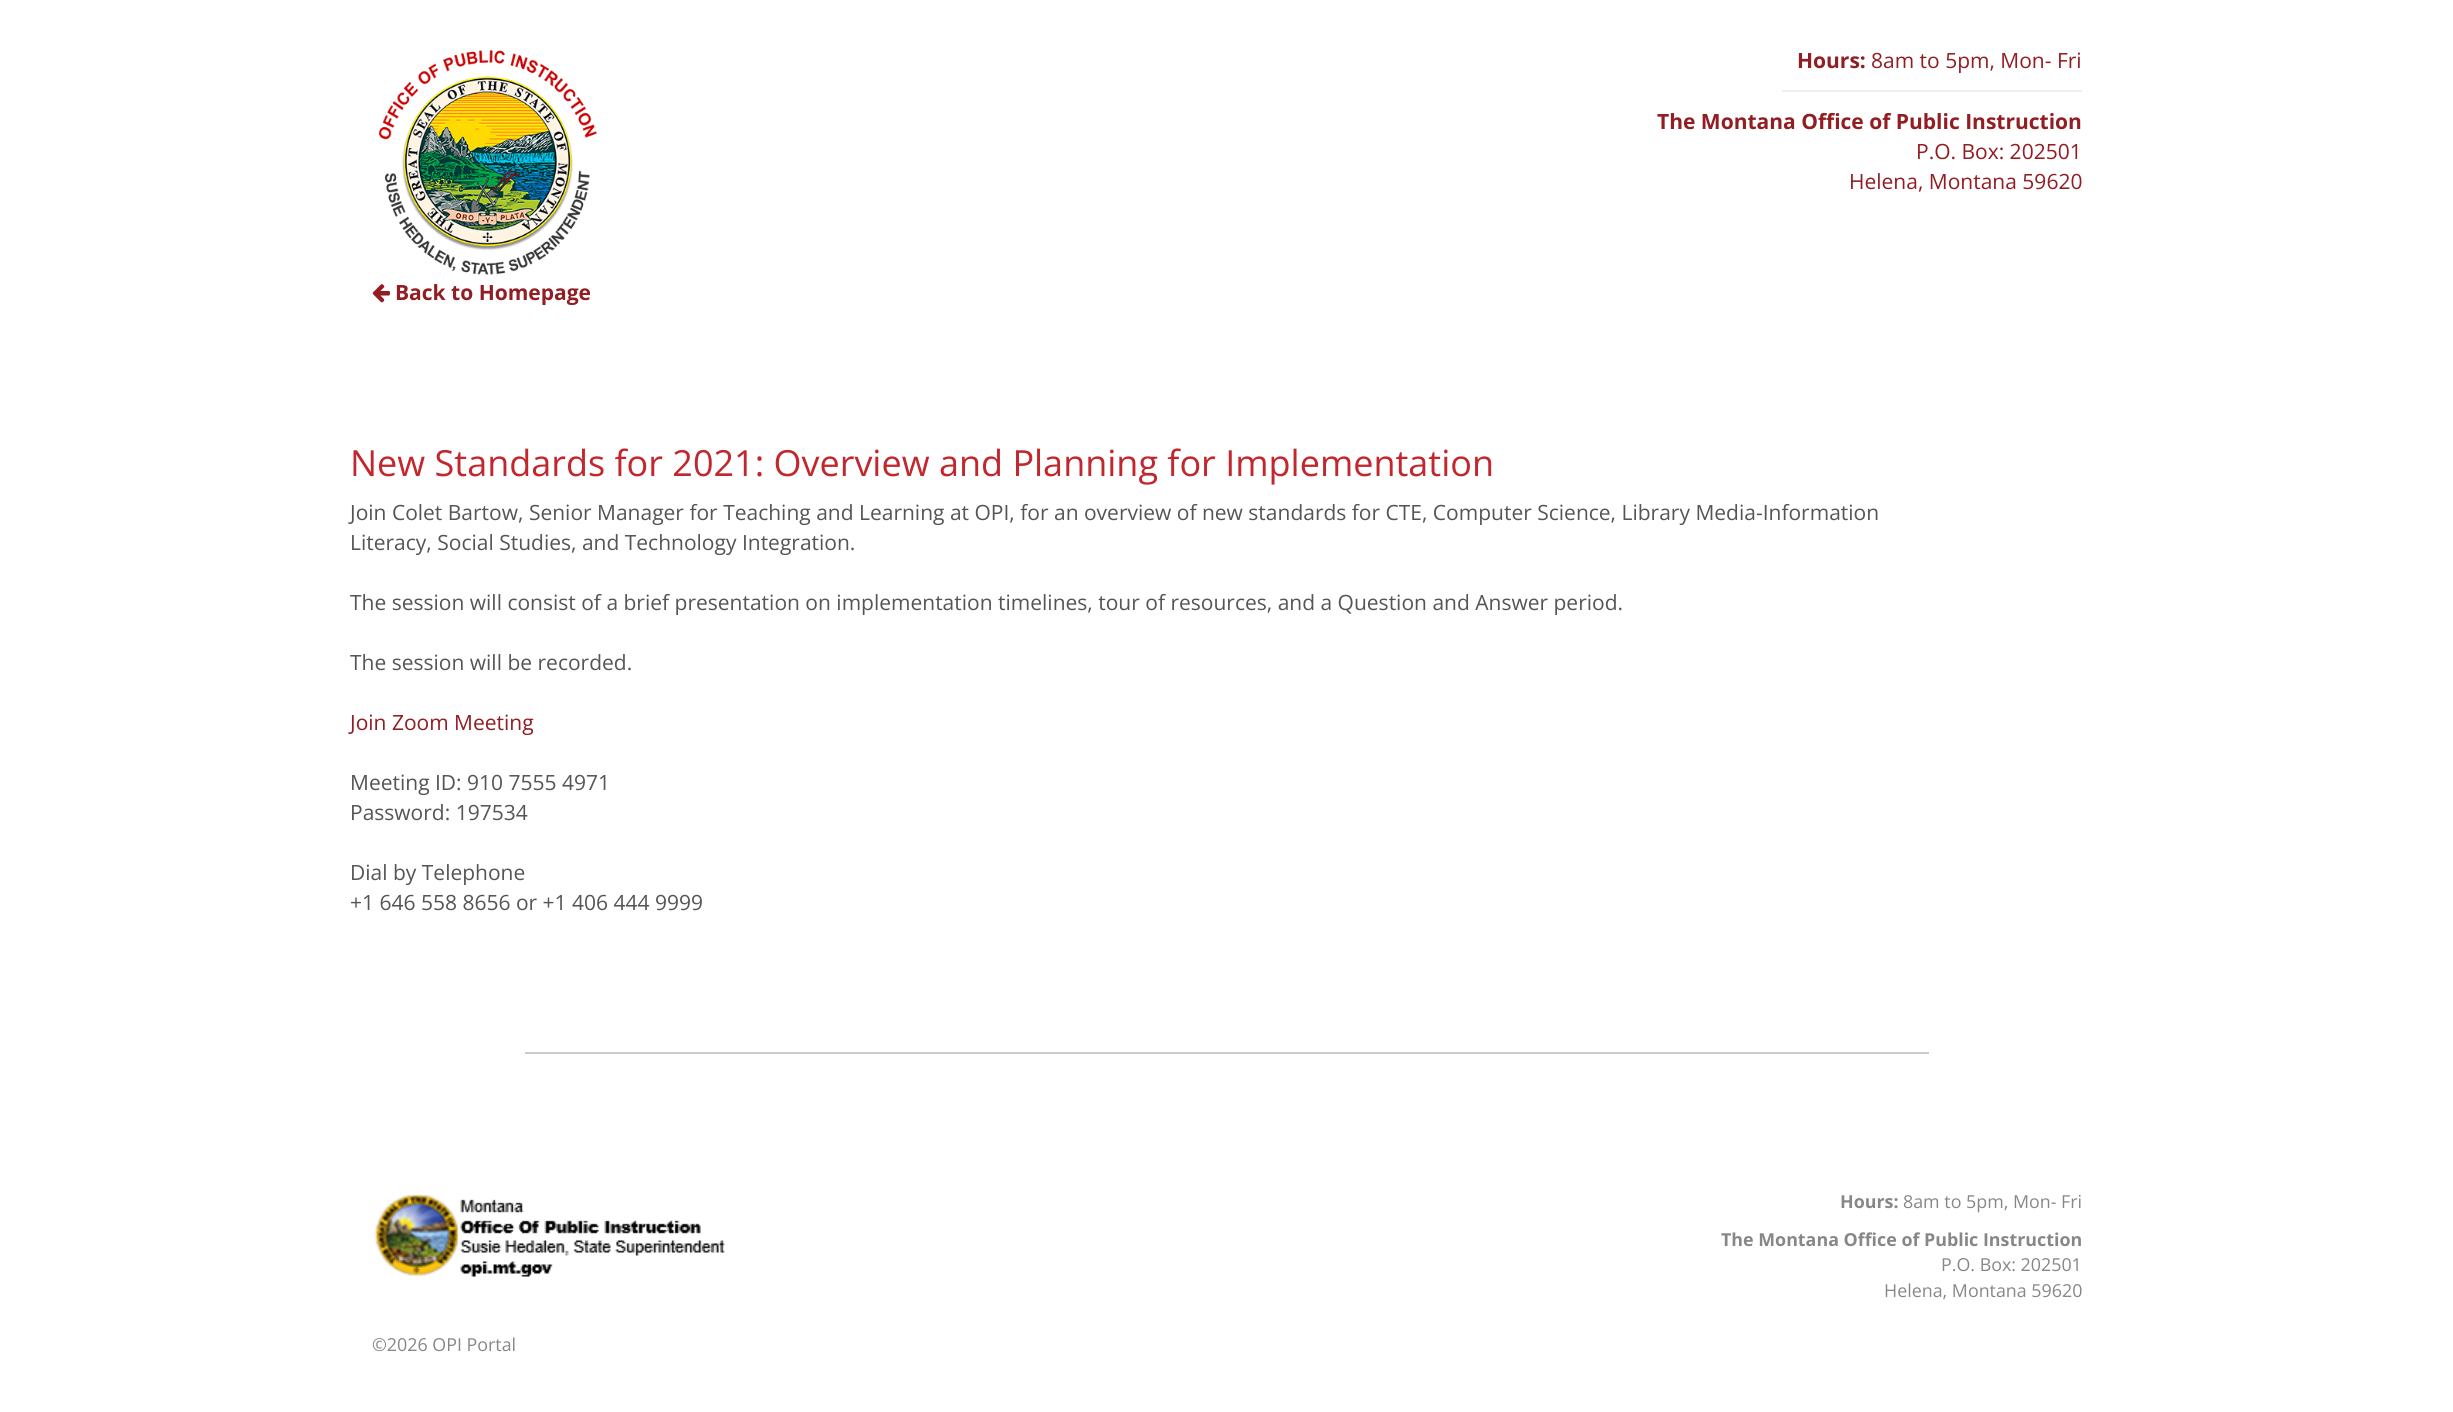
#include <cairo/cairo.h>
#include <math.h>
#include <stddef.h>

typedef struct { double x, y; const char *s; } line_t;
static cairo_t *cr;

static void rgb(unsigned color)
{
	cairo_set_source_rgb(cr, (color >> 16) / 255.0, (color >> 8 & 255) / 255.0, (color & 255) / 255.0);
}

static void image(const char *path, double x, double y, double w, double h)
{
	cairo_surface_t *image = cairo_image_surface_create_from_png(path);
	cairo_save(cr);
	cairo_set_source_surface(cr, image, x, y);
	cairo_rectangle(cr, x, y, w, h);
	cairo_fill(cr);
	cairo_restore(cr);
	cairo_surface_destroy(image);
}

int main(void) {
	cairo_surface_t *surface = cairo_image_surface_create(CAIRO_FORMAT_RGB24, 2453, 1412);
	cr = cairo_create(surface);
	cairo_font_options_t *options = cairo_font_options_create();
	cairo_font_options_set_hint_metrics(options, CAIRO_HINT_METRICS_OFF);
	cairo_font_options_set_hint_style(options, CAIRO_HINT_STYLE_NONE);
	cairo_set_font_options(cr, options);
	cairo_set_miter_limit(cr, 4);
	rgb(0xffffff);
	cairo_paint(cr);
	rgb(0xeeeeee);
	cairo_rectangle(cr, 1782, 90, 300, 2);
	cairo_fill(cr);
	image("img/1.png", 379, 50, 218, 225);
	image("img/2.png", 372, 284, 18, 19);
	rgb(0xcccccc);
	cairo_rectangle(cr, 525, 1052, 1404, 2);
	cairo_fill(cr);
	image("img/3.png", 374, 1194, 351, 83);
	cairo_select_font_face(cr, "Open Sans", CAIRO_FONT_SLANT_NORMAL, CAIRO_FONT_WEIGHT_BOLD);
	cairo_set_font_size(cr, 21);
	rgb(0x921d22);
	cairo_move_to(cr, 1797, 68);
	cairo_show_text(cr, "Hours:");
	cairo_select_font_face(cr, "Open Sans", CAIRO_FONT_SLANT_NORMAL, CAIRO_FONT_WEIGHT_NORMAL);
	cairo_move_to(cr, 1871, 68);
	cairo_show_text(cr, "8am to 5pm, Mon- Fri");
	cairo_select_font_face(cr, "Open Sans", CAIRO_FONT_SLANT_NORMAL, CAIRO_FONT_WEIGHT_BOLD);
	cairo_move_to(cr, 1657, 129);
	cairo_show_text(cr, "The Montana Office of Public Instruction");
	cairo_select_font_face(cr, "Open Sans", CAIRO_FONT_SLANT_NORMAL, CAIRO_FONT_WEIGHT_NORMAL);
	cairo_move_to(cr, 1916, 159);
	cairo_show_text(cr, "P.O. Box: 202501");
	cairo_move_to(cr, 1849, 189);
	cairo_show_text(cr, "Helena, Montana 59620");
	cairo_select_font_face(cr, "Open Sans", CAIRO_FONT_SLANT_NORMAL, CAIRO_FONT_WEIGHT_BOLD);
	cairo_move_to(cr, 395, 300);
	cairo_show_text(cr, "Back to Homepage");
	cairo_select_font_face(cr, "Open Sans", CAIRO_FONT_SLANT_NORMAL, CAIRO_FONT_WEIGHT_NORMAL);
	cairo_set_font_size(cr, 36);
	rgb(0xc1272d);
	cairo_move_to(cr, 350, 476);
	cairo_show_text(cr, "New Standards for 2021: Overview and Planning for Implementation");
	cairo_set_font_size(cr, 21);
	rgb(0x555555);
	{
		static const line_t items[] = {
			{350, 520, "Join Colet Bartow, Senior Manager for Teaching and Learning at OPI, for an overview of new standards for CTE, Computer Science, Library Media-Information"},
			{350, 550, "Literacy, Social Studies, and Technology Integration."},
			{350, 610, "The session will consist of a brief presentation on implementation timelines, tour of resources, and a Question and Answer period."},
			{350, 670, "The session will be recorded."},
		};
		for (size_t i = 0; i < sizeof items / sizeof *items; i++) {
			cairo_move_to(cr, items[i].x, items[i].y);
			cairo_show_text(cr, items[i].s);
		}
	}
	rgb(0x921d22);
	cairo_move_to(cr, 350, 730);
	cairo_show_text(cr, "Join Zoom Meeting");
	rgb(0x555555);
	{
		static const line_t items[] = {
			{350, 790, "Meeting ID: 910 7555 4971"},
			{350, 820, "Password: 197534"},
			{350, 880, "Dial by Telephone"},
			{350, 910, "+1 646 558 8656 or +1 406 444 9999"},
		};
		for (size_t i = 0; i < sizeof items / sizeof *items; i++) {
			cairo_move_to(cr, items[i].x, items[i].y);
			cairo_show_text(cr, items[i].s);
		}
	}
	cairo_select_font_face(cr, "Open Sans", CAIRO_FONT_SLANT_NORMAL, CAIRO_FONT_WEIGHT_BOLD);
	cairo_set_font_size(cr, 17.85);
	rgb(0x878787);
	cairo_move_to(cr, 1840, 1208);
	cairo_show_text(cr, "Hours:");
	cairo_select_font_face(cr, "Open Sans", CAIRO_FONT_SLANT_NORMAL, CAIRO_FONT_WEIGHT_NORMAL);
	cairo_move_to(cr, 1903, 1208);
	cairo_show_text(cr, "8am to 5pm, Mon- Fri");
	cairo_select_font_face(cr, "Open Sans", CAIRO_FONT_SLANT_NORMAL, CAIRO_FONT_WEIGHT_BOLD);
	cairo_move_to(cr, 1721, 1246);
	cairo_show_text(cr, "The Montana Office of Public Instruction");
	cairo_select_font_face(cr, "Open Sans", CAIRO_FONT_SLANT_NORMAL, CAIRO_FONT_WEIGHT_NORMAL);
	{
		static const line_t items[] = {
			{1941, 1271, "P.O. Box: 202501"},
			{1884, 1297, "Helena, Montana 59620"},
			{372, 1351, "©2026 OPI Portal"},
		};
		for (size_t i = 0; i < sizeof items / sizeof *items; i++) {
			cairo_move_to(cr, items[i].x, items[i].y);
			cairo_show_text(cr, items[i].s);
		}
	}
	cairo_surface_write_to_png(surface, "page.png");
	cairo_font_options_destroy(options);
	cairo_destroy(cr);
	cairo_surface_destroy(surface);
	return 0;
}
